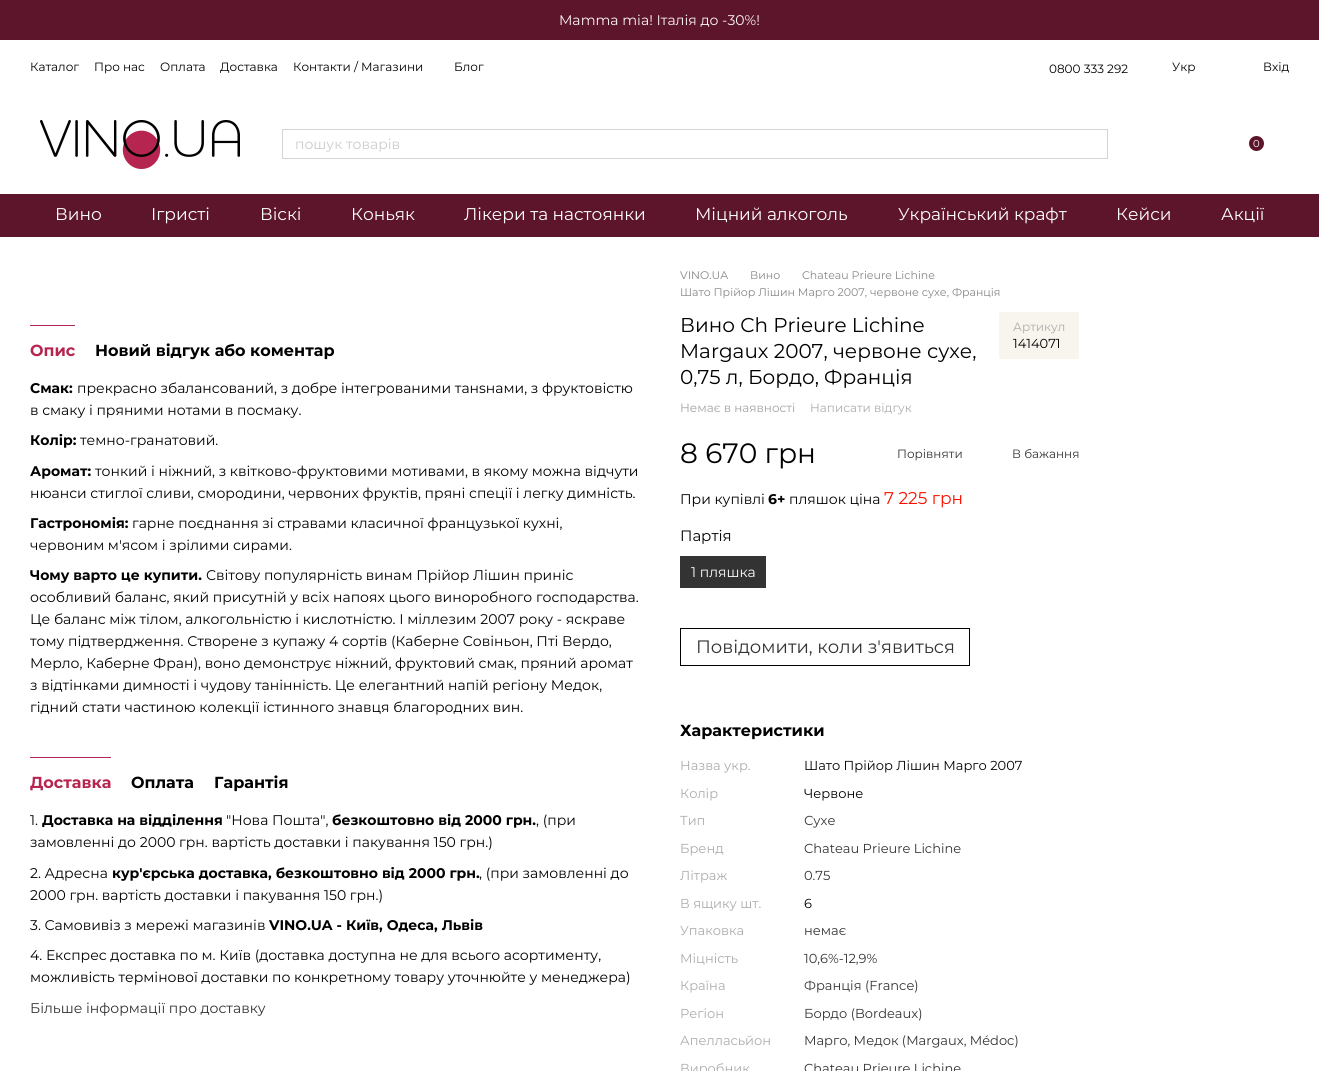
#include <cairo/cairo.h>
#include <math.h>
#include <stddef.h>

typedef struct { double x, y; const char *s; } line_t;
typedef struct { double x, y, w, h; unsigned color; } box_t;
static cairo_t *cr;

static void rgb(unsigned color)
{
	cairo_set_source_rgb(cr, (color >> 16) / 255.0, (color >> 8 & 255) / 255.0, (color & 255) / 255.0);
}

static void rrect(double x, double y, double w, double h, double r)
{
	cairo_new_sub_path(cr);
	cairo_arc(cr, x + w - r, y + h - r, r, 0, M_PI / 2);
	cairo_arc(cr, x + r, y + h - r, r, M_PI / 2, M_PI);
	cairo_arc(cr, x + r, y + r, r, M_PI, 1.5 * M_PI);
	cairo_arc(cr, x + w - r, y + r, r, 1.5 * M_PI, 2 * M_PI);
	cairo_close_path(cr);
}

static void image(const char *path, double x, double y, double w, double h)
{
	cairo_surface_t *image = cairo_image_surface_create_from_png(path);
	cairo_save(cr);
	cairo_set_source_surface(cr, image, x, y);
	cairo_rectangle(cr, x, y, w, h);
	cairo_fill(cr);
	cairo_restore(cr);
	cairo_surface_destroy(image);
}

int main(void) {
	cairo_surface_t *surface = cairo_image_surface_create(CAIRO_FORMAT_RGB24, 1319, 1071);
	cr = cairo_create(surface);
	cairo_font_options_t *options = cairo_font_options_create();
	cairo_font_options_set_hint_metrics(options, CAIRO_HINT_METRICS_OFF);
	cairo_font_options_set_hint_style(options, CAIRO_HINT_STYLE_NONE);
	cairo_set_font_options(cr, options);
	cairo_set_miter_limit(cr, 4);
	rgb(0xffffff);
	cairo_paint(cr);
	rgb(0x5d152b);
	cairo_rectangle(cr, 0, 0, 1319, 40);
	cairo_fill(cr);
	image("img/1.png", 40, 120, 200, 49);
	cairo_rectangle(cr, 282.5, 129.5, 825, 29);
	rgb(0xd4d4d4);
	cairo_set_line_width(cr, 1);
	cairo_stroke(cr);
	rgb(0x5d152b);
	cairo_arc(cr, 1256.5, 143.5, 7.5, 0, 2 * M_PI);
	cairo_fill(cr);
	{
		static const box_t items[] = {
			{0, 194, 1319, 43, 0x5d152b},
			{30, 325, 45, 1, 0xb62550},
			{30, 757, 81, 1, 0xb62550},
		};
		for (size_t i = 0; i < sizeof items / sizeof *items; i++) {
			rgb(items[i].color);
			cairo_rectangle(cr, items[i].x, items[i].y, items[i].w, items[i].h);
			cairo_fill(cr);
		}
	}
	rgb(0xf7f5ee);
	rrect(999, 312, 80, 47, 2);
	cairo_fill(cr);
	rgb(0x333333);
	cairo_rectangle(cr, 680, 556, 86, 32);
	cairo_fill(cr);
	cairo_rectangle(cr, 680.5, 628.5, 289, 37);
	rgb(0x000000);
	cairo_stroke(cr);
	cairo_select_font_face(cr, "Montserrat", CAIRO_FONT_SLANT_NORMAL, CAIRO_FONT_WEIGHT_NORMAL);
	cairo_set_font_size(cr, 14);
	rgb(0xfcf7f7);
	cairo_move_to(cr, 559, 25);
	cairo_show_text(cr, "Mamma mia! Італія до -30%!");
	cairo_set_font_size(cr, 12);
	rgb(0x000000);
	{
		static const line_t items[] = {
			{30, 71, "Каталог"},
			{94, 71, "Про нас"},
			{160, 71, "Оплата"},
			{220, 71, "Доставка"},
			{293, 71, "Контакти / Магазини"},
			{454, 71, "Блог"},
			{1049, 73, "0800 333 292"},
			{1172, 71, "Укр"},
			{1263, 71, "Вхід"},
		};
		for (size_t i = 0; i < sizeof items / sizeof *items; i++) {
			cairo_move_to(cr, items[i].x, items[i].y);
			cairo_show_text(cr, items[i].s);
		}
	}
	cairo_set_font_size(cr, 14);
	rgb(0xcccccc);
	cairo_move_to(cr, 295, 149);
	cairo_show_text(cr, "пошук товарів");
	cairo_set_font_size(cr, 10);
	rgb(0xffffff);
	cairo_move_to(cr, 1253, 147);
	cairo_show_text(cr, "0");
	cairo_set_font_size(cr, 17);
	{
		static const line_t items[] = {
			{55, 220, "Вино"},
			{151, 220, "Ігристі"},
			{260, 220, "Віскі"},
			{351, 220, "Коньяк"},
			{464, 220, "Лікери та настоянки"},
			{695, 220, "Міцний алкоголь"},
			{898, 220, "Український крафт"},
			{1116, 220, "Кейси"},
			{1221, 220, "Акції"},
		};
		for (size_t i = 0; i < sizeof items / sizeof *items; i++) {
			cairo_move_to(cr, items[i].x, items[i].y);
			cairo_show_text(cr, items[i].s);
		}
	}
	cairo_select_font_face(cr, "Montserrat", CAIRO_FONT_SLANT_NORMAL, CAIRO_FONT_WEIGHT_BOLD);
	cairo_set_font_size(cr, 16);
	rgb(0xb62550);
	cairo_move_to(cr, 30, 356);
	cairo_show_text(cr, "Опис");
	rgb(0x000000);
	cairo_move_to(cr, 95, 356);
	cairo_show_text(cr, "Новий відгук або коментар");
	cairo_set_font_size(cr, 14);
	cairo_move_to(cr, 30, 393);
	cairo_show_text(cr, "Смак:");
	cairo_select_font_face(cr, "Montserrat", CAIRO_FONT_SLANT_NORMAL, CAIRO_FONT_WEIGHT_NORMAL);
	cairo_move_to(cr, 77, 393);
	cairo_show_text(cr, "прекрасно збалансований, з добре інтегрованими танsнами, з фруктовістю");
	cairo_move_to(cr, 30, 415);
	cairo_show_text(cr, "в смаку і пряними нотами в посмаку.");
	cairo_select_font_face(cr, "Montserrat", CAIRO_FONT_SLANT_NORMAL, CAIRO_FONT_WEIGHT_BOLD);
	cairo_move_to(cr, 30, 445);
	cairo_show_text(cr, "Колір:");
	cairo_select_font_face(cr, "Montserrat", CAIRO_FONT_SLANT_NORMAL, CAIRO_FONT_WEIGHT_NORMAL);
	cairo_move_to(cr, 80, 445);
	cairo_show_text(cr, "темно-гранатовий.");
	cairo_select_font_face(cr, "Montserrat", CAIRO_FONT_SLANT_NORMAL, CAIRO_FONT_WEIGHT_BOLD);
	cairo_move_to(cr, 30, 476);
	cairo_show_text(cr, "Аромат:");
	cairo_select_font_face(cr, "Montserrat", CAIRO_FONT_SLANT_NORMAL, CAIRO_FONT_WEIGHT_NORMAL);
	cairo_move_to(cr, 95, 476);
	cairo_show_text(cr, "тонкий і ніжний, з квітково-фруктовими мотивами, в якому можна відчути");
	cairo_move_to(cr, 30, 498);
	cairo_show_text(cr, "нюанси стиглої сливи, смородини, червоних фруктів, пряні спеції і легку димність.");
	cairo_select_font_face(cr, "Montserrat", CAIRO_FONT_SLANT_NORMAL, CAIRO_FONT_WEIGHT_BOLD);
	cairo_move_to(cr, 30, 528);
	cairo_show_text(cr, "Гастрономія:");
	cairo_select_font_face(cr, "Montserrat", CAIRO_FONT_SLANT_NORMAL, CAIRO_FONT_WEIGHT_NORMAL);
	cairo_move_to(cr, 132, 528);
	cairo_show_text(cr, "гарне поєднання зі стравами класичної французької кухні,");
	cairo_move_to(cr, 30, 550);
	cairo_show_text(cr, "червоним м'ясом і зрілими сирами.");
	cairo_select_font_face(cr, "Montserrat", CAIRO_FONT_SLANT_NORMAL, CAIRO_FONT_WEIGHT_BOLD);
	cairo_move_to(cr, 30, 580);
	cairo_show_text(cr, "Чому варто це купити.");
	cairo_select_font_face(cr, "Montserrat", CAIRO_FONT_SLANT_NORMAL, CAIRO_FONT_WEIGHT_NORMAL);
	{
		static const line_t items[] = {
			{206, 580, "Світову популярність винам Прійор Лішин приніс"},
			{30, 602, "особливий баланс, який присутній у всіх напоях цього виноробного господарства."},
			{30, 624, "Це баланс між тілом, алкогольністю і кислотністю. І міллезим 2007 року - яскраве"},
			{30, 646, "тому підтвердження. Створене з купажу 4 сортів (Каберне Совіньон, Пті Вердо,"},
			{30, 668, "Мерло, Каберне Фран), воно демонструє ніжний, фруктовий смак, пряний аромат"},
			{30, 690, "з відтінками димності і чудову танінність. Це елегантний напій регіону Медок,"},
			{30, 712, "гідний стати частиною колекції істинного знавця благородних вин."},
		};
		for (size_t i = 0; i < sizeof items / sizeof *items; i++) {
			cairo_move_to(cr, items[i].x, items[i].y);
			cairo_show_text(cr, items[i].s);
		}
	}
	cairo_select_font_face(cr, "Montserrat", CAIRO_FONT_SLANT_NORMAL, CAIRO_FONT_WEIGHT_BOLD);
	cairo_set_font_size(cr, 16);
	rgb(0xb62550);
	cairo_move_to(cr, 30, 788);
	cairo_show_text(cr, "Доставка");
	rgb(0x000000);
	cairo_move_to(cr, 131, 788);
	cairo_show_text(cr, "Оплата");
	cairo_move_to(cr, 214, 788);
	cairo_show_text(cr, "Гарантія");
	cairo_select_font_face(cr, "Montserrat", CAIRO_FONT_SLANT_NORMAL, CAIRO_FONT_WEIGHT_NORMAL);
	cairo_set_font_size(cr, 14);
	cairo_move_to(cr, 30, 825);
	cairo_show_text(cr, "1.");
	cairo_select_font_face(cr, "Montserrat", CAIRO_FONT_SLANT_NORMAL, CAIRO_FONT_WEIGHT_BOLD);
	cairo_move_to(cr, 42, 825);
	cairo_show_text(cr, "Доставка на відділення");
	cairo_select_font_face(cr, "Montserrat", CAIRO_FONT_SLANT_NORMAL, CAIRO_FONT_WEIGHT_NORMAL);
	cairo_move_to(cr, 226, 825);
	cairo_show_text(cr, "\"Нова Пошта\",");
	cairo_select_font_face(cr, "Montserrat", CAIRO_FONT_SLANT_NORMAL, CAIRO_FONT_WEIGHT_BOLD);
	cairo_move_to(cr, 332, 825);
	cairo_show_text(cr, "безкоштовно від 2000 грн.");
	cairo_select_font_face(cr, "Montserrat", CAIRO_FONT_SLANT_NORMAL, CAIRO_FONT_WEIGHT_NORMAL);
	{
		static const line_t items[] = {
			{536, 825, ", (при"},
			{30, 847, "замовленні до 2000 грн. вартість доставки і пакування 150 грн.)"},
			{30, 878, "2. Адресна"},
		};
		for (size_t i = 0; i < sizeof items / sizeof *items; i++) {
			cairo_move_to(cr, items[i].x, items[i].y);
			cairo_show_text(cr, items[i].s);
		}
	}
	cairo_select_font_face(cr, "Montserrat", CAIRO_FONT_SLANT_NORMAL, CAIRO_FONT_WEIGHT_BOLD);
	cairo_move_to(cr, 112, 878);
	cairo_show_text(cr, "кур'єрська доставка, безкоштовно від 2000 грн.");
	cairo_select_font_face(cr, "Montserrat", CAIRO_FONT_SLANT_NORMAL, CAIRO_FONT_WEIGHT_NORMAL);
	{
		static const line_t items[] = {
			{479, 878, ", (при замовленні до"},
			{30, 900, "2000 грн. вартість доставки і пакування 150 грн.)"},
			{30, 930, "3. Самовивіз з мережі магазинів"},
		};
		for (size_t i = 0; i < sizeof items / sizeof *items; i++) {
			cairo_move_to(cr, items[i].x, items[i].y);
			cairo_show_text(cr, items[i].s);
		}
	}
	cairo_select_font_face(cr, "Montserrat", CAIRO_FONT_SLANT_NORMAL, CAIRO_FONT_WEIGHT_BOLD);
	cairo_move_to(cr, 269, 930);
	cairo_show_text(cr, "VINO.UA - Київ, Одеса, Львів");
	cairo_select_font_face(cr, "Montserrat", CAIRO_FONT_SLANT_NORMAL, CAIRO_FONT_WEIGHT_NORMAL);
	cairo_move_to(cr, 30, 960);
	cairo_show_text(cr, "4. Експрес доставка по м. Київ (доставка доступна не для всього асортименту,");
	cairo_move_to(cr, 30, 982);
	cairo_show_text(cr, "можливість термінової доставки по конкретному товару уточнюйте у менеджера)");
	rgb(0x333333);
	cairo_move_to(cr, 30, 1013);
	cairo_show_text(cr, "Більше інформації про доставку");
	cairo_set_font_size(cr, 11);
	rgb(0x868686);
	{
		static const line_t items[] = {
			{680, 279, "VINO.UA"},
			{750, 279, "Вино"},
			{802, 279, "Chateau Prieure Lichine"},
			{680, 296, "Шато Прійор Лішин Марго 2007, червоне сухе, Франція"},
		};
		for (size_t i = 0; i < sizeof items / sizeof *items; i++) {
			cairo_move_to(cr, items[i].x, items[i].y);
			cairo_show_text(cr, items[i].s);
		}
	}
	cairo_set_font_size(cr, 20);
	rgb(0x000000);
	{
		static const line_t items[] = {
			{680, 332, "Вино Ch Prieure Lichine"},
			{680, 358, "Margaux 2007, червоне сухе,"},
			{680, 384, "0,75 л, Бордо, Франція"},
		};
		for (size_t i = 0; i < sizeof items / sizeof *items; i++) {
			cairo_move_to(cr, items[i].x, items[i].y);
			cairo_show_text(cr, items[i].s);
		}
	}
	cairo_set_font_size(cr, 12);
	rgb(0xacacac);
	cairo_move_to(cr, 1013, 331);
	cairo_show_text(cr, "Артикул");
	cairo_set_font_size(cr, 13);
	rgb(0x000000);
	cairo_move_to(cr, 1013, 348);
	cairo_show_text(cr, "1414071");
	cairo_set_font_size(cr, 12);
	rgb(0xa2a2a2);
	cairo_move_to(cr, 680, 412);
	cairo_show_text(cr, "Немає в наявності");
	rgb(0xacacac);
	cairo_move_to(cr, 810, 412);
	cairo_show_text(cr, "Написати відгук");
	cairo_set_font_size(cr, 28);
	rgb(0x000000);
	cairo_move_to(cr, 680, 463);
	cairo_show_text(cr, "8 670 грн");
	cairo_set_font_size(cr, 12);
	rgb(0x333333);
	cairo_move_to(cr, 897, 458);
	cairo_show_text(cr, "Порівняти");
	cairo_move_to(cr, 1012, 458);
	cairo_show_text(cr, "В бажання");
	cairo_set_font_size(cr, 14);
	rgb(0x000000);
	cairo_move_to(cr, 680, 504);
	cairo_show_text(cr, "При купівлі");
	cairo_select_font_face(cr, "Montserrat", CAIRO_FONT_SLANT_NORMAL, CAIRO_FONT_WEIGHT_BOLD);
	cairo_move_to(cr, 768, 504);
	cairo_show_text(cr, "6+");
	cairo_select_font_face(cr, "Montserrat", CAIRO_FONT_SLANT_NORMAL, CAIRO_FONT_WEIGHT_NORMAL);
	cairo_move_to(cr, 789, 504);
	cairo_show_text(cr, "пляшок ціна");
	cairo_set_font_size(cr, 17);
	rgb(0xf91000);
	cairo_move_to(cr, 884, 504);
	cairo_show_text(cr, "7 225 грн");
	cairo_set_font_size(cr, 15);
	rgb(0x000000);
	cairo_move_to(cr, 680, 541);
	cairo_show_text(cr, "Партія");
	cairo_set_font_size(cr, 14);
	rgb(0xffffff);
	cairo_move_to(cr, 691, 577);
	cairo_show_text(cr, "1 пляшка");
	cairo_set_font_size(cr, 18);
	rgb(0x333333);
	cairo_move_to(cr, 696, 653);
	cairo_show_text(cr, "Повідомити, коли з'явиться");
	cairo_select_font_face(cr, "Montserrat", CAIRO_FONT_SLANT_NORMAL, CAIRO_FONT_WEIGHT_BOLD);
	cairo_set_font_size(cr, 16);
	rgb(0x000000);
	cairo_move_to(cr, 680, 736);
	cairo_show_text(cr, "Характеристики");
	cairo_select_font_face(cr, "Montserrat", CAIRO_FONT_SLANT_NORMAL, CAIRO_FONT_WEIGHT_NORMAL);
	cairo_set_font_size(cr, 13);
	rgb(0xacacac);
	cairo_move_to(cr, 680, 770);
	cairo_show_text(cr, "Назва укр.");
	rgb(0x000000);
	cairo_move_to(cr, 804, 770);
	cairo_show_text(cr, "Шато Прійор Лішин Марго 2007");
	rgb(0xacacac);
	cairo_move_to(cr, 680, 798);
	cairo_show_text(cr, "Колір");
	rgb(0x000000);
	cairo_move_to(cr, 804, 798);
	cairo_show_text(cr, "Червоне");
	rgb(0xacacac);
	cairo_move_to(cr, 680, 825);
	cairo_show_text(cr, "Тип");
	rgb(0x333333);
	cairo_move_to(cr, 804, 825);
	cairo_show_text(cr, "Сухе");
	rgb(0xacacac);
	cairo_move_to(cr, 680, 853);
	cairo_show_text(cr, "Бренд");
	rgb(0x333333);
	cairo_move_to(cr, 804, 853);
	cairo_show_text(cr, "Chateau Prieure Lichine");
	rgb(0xacacac);
	cairo_move_to(cr, 680, 880);
	cairo_show_text(cr, "Літраж");
	rgb(0x333333);
	cairo_move_to(cr, 804, 880);
	cairo_show_text(cr, "0.75");
	rgb(0xacacac);
	cairo_move_to(cr, 680, 908);
	cairo_show_text(cr, "В ящику шт.");
	rgb(0x000000);
	cairo_move_to(cr, 804, 908);
	cairo_show_text(cr, "6");
	rgb(0xacacac);
	cairo_move_to(cr, 680, 935);
	cairo_show_text(cr, "Упаковка");
	rgb(0x333333);
	cairo_move_to(cr, 804, 935);
	cairo_show_text(cr, "немає");
	rgb(0xacacac);
	cairo_move_to(cr, 680, 963);
	cairo_show_text(cr, "Міцність");
	rgb(0x333333);
	cairo_move_to(cr, 804, 963);
	cairo_show_text(cr, "10,6%-12,9%");
	rgb(0xacacac);
	cairo_move_to(cr, 680, 990);
	cairo_show_text(cr, "Країна");
	rgb(0x333333);
	cairo_move_to(cr, 804, 990);
	cairo_show_text(cr, "Франція (France)");
	rgb(0xacacac);
	cairo_move_to(cr, 680, 1018);
	cairo_show_text(cr, "Регіон");
	rgb(0x333333);
	cairo_move_to(cr, 804, 1018);
	cairo_show_text(cr, "Бордо (Bordeaux)");
	rgb(0xacacac);
	cairo_move_to(cr, 680, 1045);
	cairo_show_text(cr, "Апелласьйон");
	rgb(0x333333);
	cairo_move_to(cr, 804, 1045);
	cairo_show_text(cr, "Марго, Медок (Margaux, Médoc)");
	rgb(0xacacac);
	cairo_move_to(cr, 680, 1073);
	cairo_show_text(cr, "Виробник");
	rgb(0x333333);
	cairo_move_to(cr, 804, 1073);
	cairo_show_text(cr, "Chateau Prieure Lichine");
	cairo_surface_write_to_png(surface, "page.png");
	cairo_font_options_destroy(options);
	cairo_destroy(cr);
	cairo_surface_destroy(surface);
	return 0;
}
